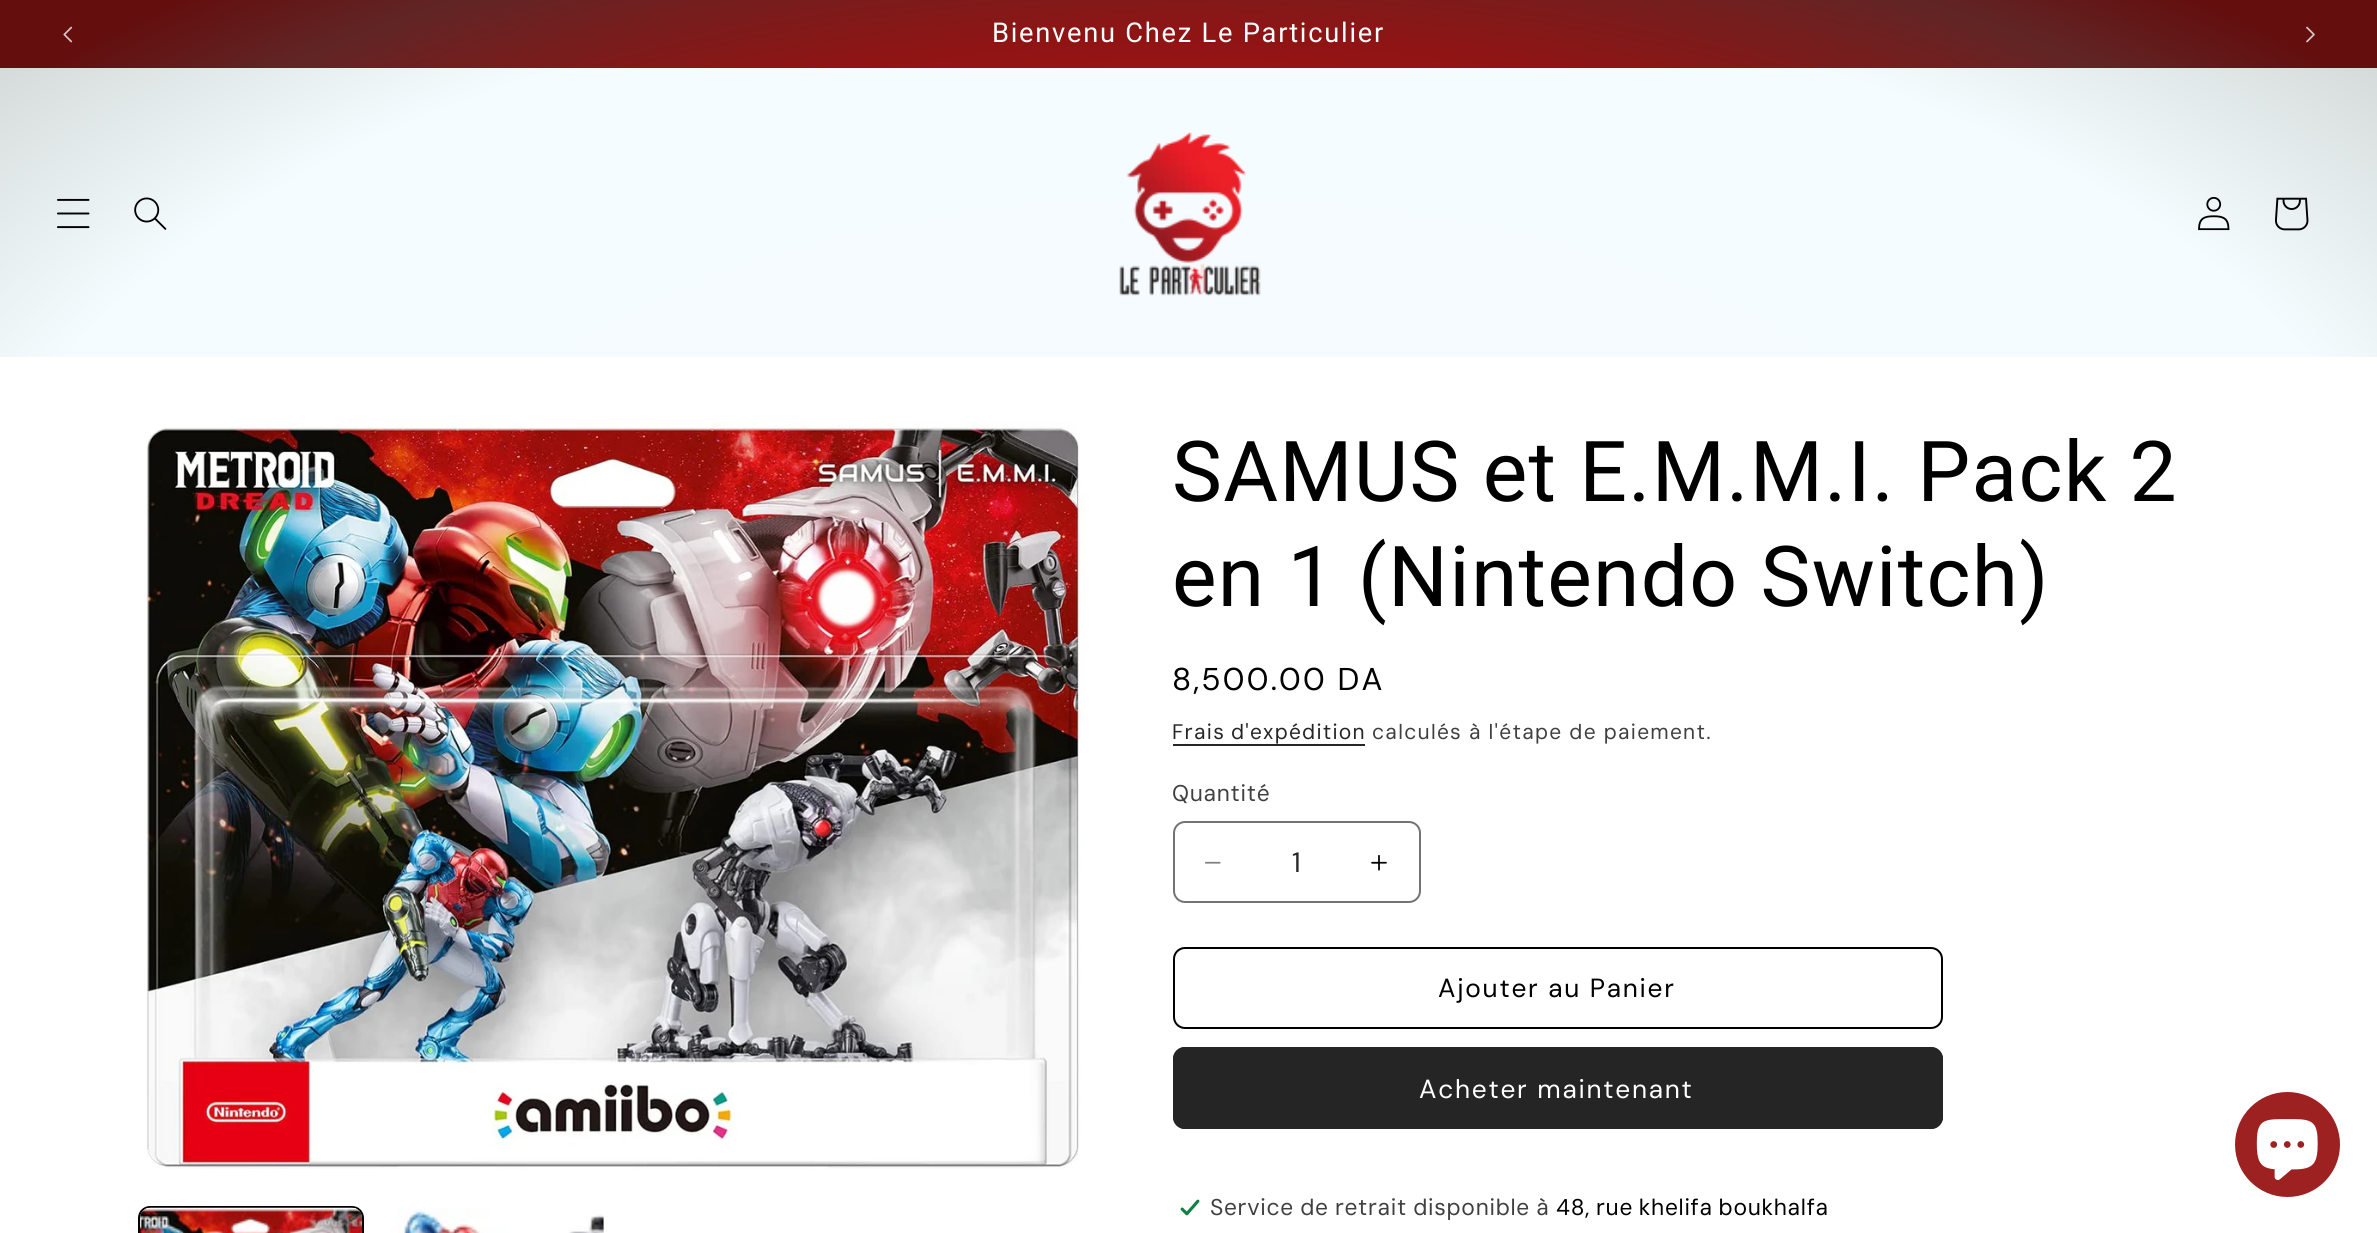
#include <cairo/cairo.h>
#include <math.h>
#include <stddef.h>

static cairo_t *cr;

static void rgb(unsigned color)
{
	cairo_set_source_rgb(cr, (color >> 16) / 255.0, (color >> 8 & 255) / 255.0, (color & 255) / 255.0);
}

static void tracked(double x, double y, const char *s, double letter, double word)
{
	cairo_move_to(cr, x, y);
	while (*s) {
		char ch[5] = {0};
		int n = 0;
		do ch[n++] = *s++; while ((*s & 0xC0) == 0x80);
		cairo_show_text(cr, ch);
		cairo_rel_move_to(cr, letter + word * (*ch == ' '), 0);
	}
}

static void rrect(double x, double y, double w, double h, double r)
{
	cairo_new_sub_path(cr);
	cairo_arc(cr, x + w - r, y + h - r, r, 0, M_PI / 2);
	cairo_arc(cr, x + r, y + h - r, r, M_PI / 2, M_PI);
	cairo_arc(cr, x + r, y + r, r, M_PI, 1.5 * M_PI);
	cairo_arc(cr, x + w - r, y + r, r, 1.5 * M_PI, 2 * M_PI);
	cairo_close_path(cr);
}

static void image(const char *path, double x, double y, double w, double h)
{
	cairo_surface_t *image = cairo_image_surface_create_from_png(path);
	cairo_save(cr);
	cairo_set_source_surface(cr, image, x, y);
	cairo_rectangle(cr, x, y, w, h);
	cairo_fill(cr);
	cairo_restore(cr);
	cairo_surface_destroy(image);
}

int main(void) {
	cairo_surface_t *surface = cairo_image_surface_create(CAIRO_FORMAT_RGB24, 2377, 1233);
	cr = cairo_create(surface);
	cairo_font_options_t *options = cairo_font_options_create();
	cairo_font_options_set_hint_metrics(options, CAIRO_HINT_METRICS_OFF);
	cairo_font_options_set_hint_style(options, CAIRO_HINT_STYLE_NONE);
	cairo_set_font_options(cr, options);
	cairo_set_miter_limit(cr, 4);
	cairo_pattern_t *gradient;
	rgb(0xffffff);
	cairo_paint(cr);
	gradient = cairo_pattern_create_radial(0, 0, 0, 0, 0, 1);
	cairo_pattern_set_matrix(gradient, &(cairo_matrix_t){1.0 / 1682, 0, 0, 1.0 / 872, -1.0 * 1189 / 1682, -1.0 * 617 / 872});
	cairo_pattern_add_color_stop_rgba(gradient, 0, 0.788, 0.078, 0.078, 1);
	cairo_pattern_add_color_stop_rgba(gradient, 0.31, 0.788, 0.114, 0.114, 1);
	cairo_pattern_add_color_stop_rgba(gradient, 0.66, 0.569, 0.078, 0.078, 1);
	cairo_pattern_add_color_stop_rgba(gradient, 0.83, 0.38, 0.145, 0.145, 1);
	cairo_pattern_add_color_stop_rgba(gradient, 0.93, 0.392, 0.055, 0.055, 1);
	cairo_set_source(cr, gradient);
	cairo_pattern_destroy(gradient);
	cairo_rectangle(cr, 0, 0, 2377, 68);
	cairo_fill(cr);
	image("img/1.png", 63, 26, 10, 17);
	image("img/2.png", 2306, 26, 9, 17);
	gradient = cairo_pattern_create_radial(0, 0, 0, 0, 0, 1);
	cairo_pattern_set_matrix(gradient, &(cairo_matrix_t){1.0 / 1682, 0, 0, 1.0 / 872, -1.0 * 1189 / 1682, -1.0 * 617 / 872});
	cairo_pattern_add_color_stop_rgba(gradient, 0.16, 0.965, 0.984, 1, 1);
	cairo_pattern_add_color_stop_rgba(gradient, 0.73, 0.961, 0.988, 1, 1);
	cairo_pattern_add_color_stop_rgba(gradient, 1, 0.804, 0.827, 0.816, 1);
	cairo_set_source(cr, gradient);
	cairo_pattern_destroy(gradient);
	cairo_rectangle(cr, 0, 68, 2377, 289);
	cairo_fill(cr);
	image("img/3.png", 57, 198, 33, 31);
	image("img/4.png", 134, 197, 33, 33);
	image("img/5.png", 1119, 132, 142, 164);
	image("img/6.png", 2198, 196, 32, 35);
	image("img/7.png", 2275, 197, 34, 34);
	image("img/8.png", 146, 422, 939, 747);
	rrect(139, 1207, 224, 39, 11);
	rgb(0x000000);
	cairo_stroke(cr);
	image("img/9.png", 140, 1207, 223, 26);
	image("img/10.png", 396, 1208, 208, 25);
	rgb(0x262626);
	cairo_rectangle(cr, 1173, 744, 192, 2);
	cairo_fill(cr);
	image("img/11.png", 1205, 861, 16, 3);
	image("img/12.png", 1371, 854, 16, 17);
	rrect(1174, 822, 246, 80, 11);
	rgb(0x737373);
	cairo_stroke(cr);
	rrect(1174, 948, 768, 80, 11);
	rgb(0x000000);
	cairo_stroke(cr);
	rgb(0x252525);
	rrect(1173, 1047, 770, 82, 12);
	cairo_fill(cr);
	rrect(1174, 1048, 768, 80, 11);
	cairo_stroke(cr);
	image("img/13.png", 1180, 1199, 20, 17);
	rgb(0x9d2121);
	cairo_arc(cr, 2287.5, 1144.5, 52.5, 0, 2 * M_PI);
	cairo_fill(cr);
	image("img/14.png", 2256, 1119, 62, 61);
	cairo_select_font_face(cr, "Roboto", CAIRO_FONT_SLANT_NORMAL, CAIRO_FONT_WEIGHT_NORMAL);
	cairo_set_font_size(cr, 27.25);
	rgb(0xffffff);
	tracked(992, 42, "Bienvenu Chez Le Particulier", 1.75, 0);
	cairo_set_font_size(cr, 84);
	rgb(0x000000);
	tracked(1172, 501, "SAMUS et E.M.M.I. Pack 2", 1.25, 0);
	tracked(1172, 606, "en 1 (Nintendo Switch)", 1.25, 0);
	cairo_select_font_face(cr, "DM Sans", CAIRO_FONT_SLANT_NORMAL, CAIRO_FONT_WEIGHT_NORMAL);
	cairo_set_font_size(cr, 31.5);
	tracked(1172, 690, "8,500.00 DA", 2.25, 0);
	cairo_select_font_face(cr, "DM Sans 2", CAIRO_FONT_SLANT_NORMAL, CAIRO_FONT_WEIGHT_NORMAL);
	cairo_set_font_size(cr, 21);
	rgb(0x262626);
	tracked(1172, 739, "Frais d'expédition", 1.25, -1);
	rgb(0x404040);
	tracked(1372, 739, "calculés à l'étape de paiement.", 1.25, 0);
	cairo_set_font_size(cr, 22.75);
	tracked(1172, 801, "Quantité", 0.7, 0);
	cairo_select_font_face(cr, "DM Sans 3", CAIRO_FONT_SLANT_NORMAL, CAIRO_FONT_WEIGHT_NORMAL);
	cairo_set_font_size(cr, 28);
	rgb(0x262626);
	cairo_move_to(cr, 1292, 872);
	cairo_show_text(cr, "1");
	cairo_select_font_face(cr, "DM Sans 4", CAIRO_FONT_SLANT_NORMAL, CAIRO_FONT_WEIGHT_NORMAL);
	cairo_set_font_size(cr, 26.25);
	rgb(0x000000);
	tracked(1438, 997, "Ajouter au Panier", 1.75, 0);
	rgb(0xffffff);
	tracked(1419, 1098, "Acheter maintenant", 1.75, 0);
	cairo_select_font_face(cr, "DM Sans 2", CAIRO_FONT_SLANT_NORMAL, CAIRO_FONT_WEIGHT_NORMAL);
	cairo_set_font_size(cr, 22.75);
	rgb(0x404040);
	tracked(1210, 1215, "Service de retrait disponible à", 0.7, -0.5);
	rgb(0x000000);
	tracked(1556, 1215, "48, rue khelifa boukhalfa", 0.7, -1);
	cairo_surface_write_to_png(surface, "page.png");
	cairo_font_options_destroy(options);
	cairo_destroy(cr);
	cairo_surface_destroy(surface);
	return 0;
}
